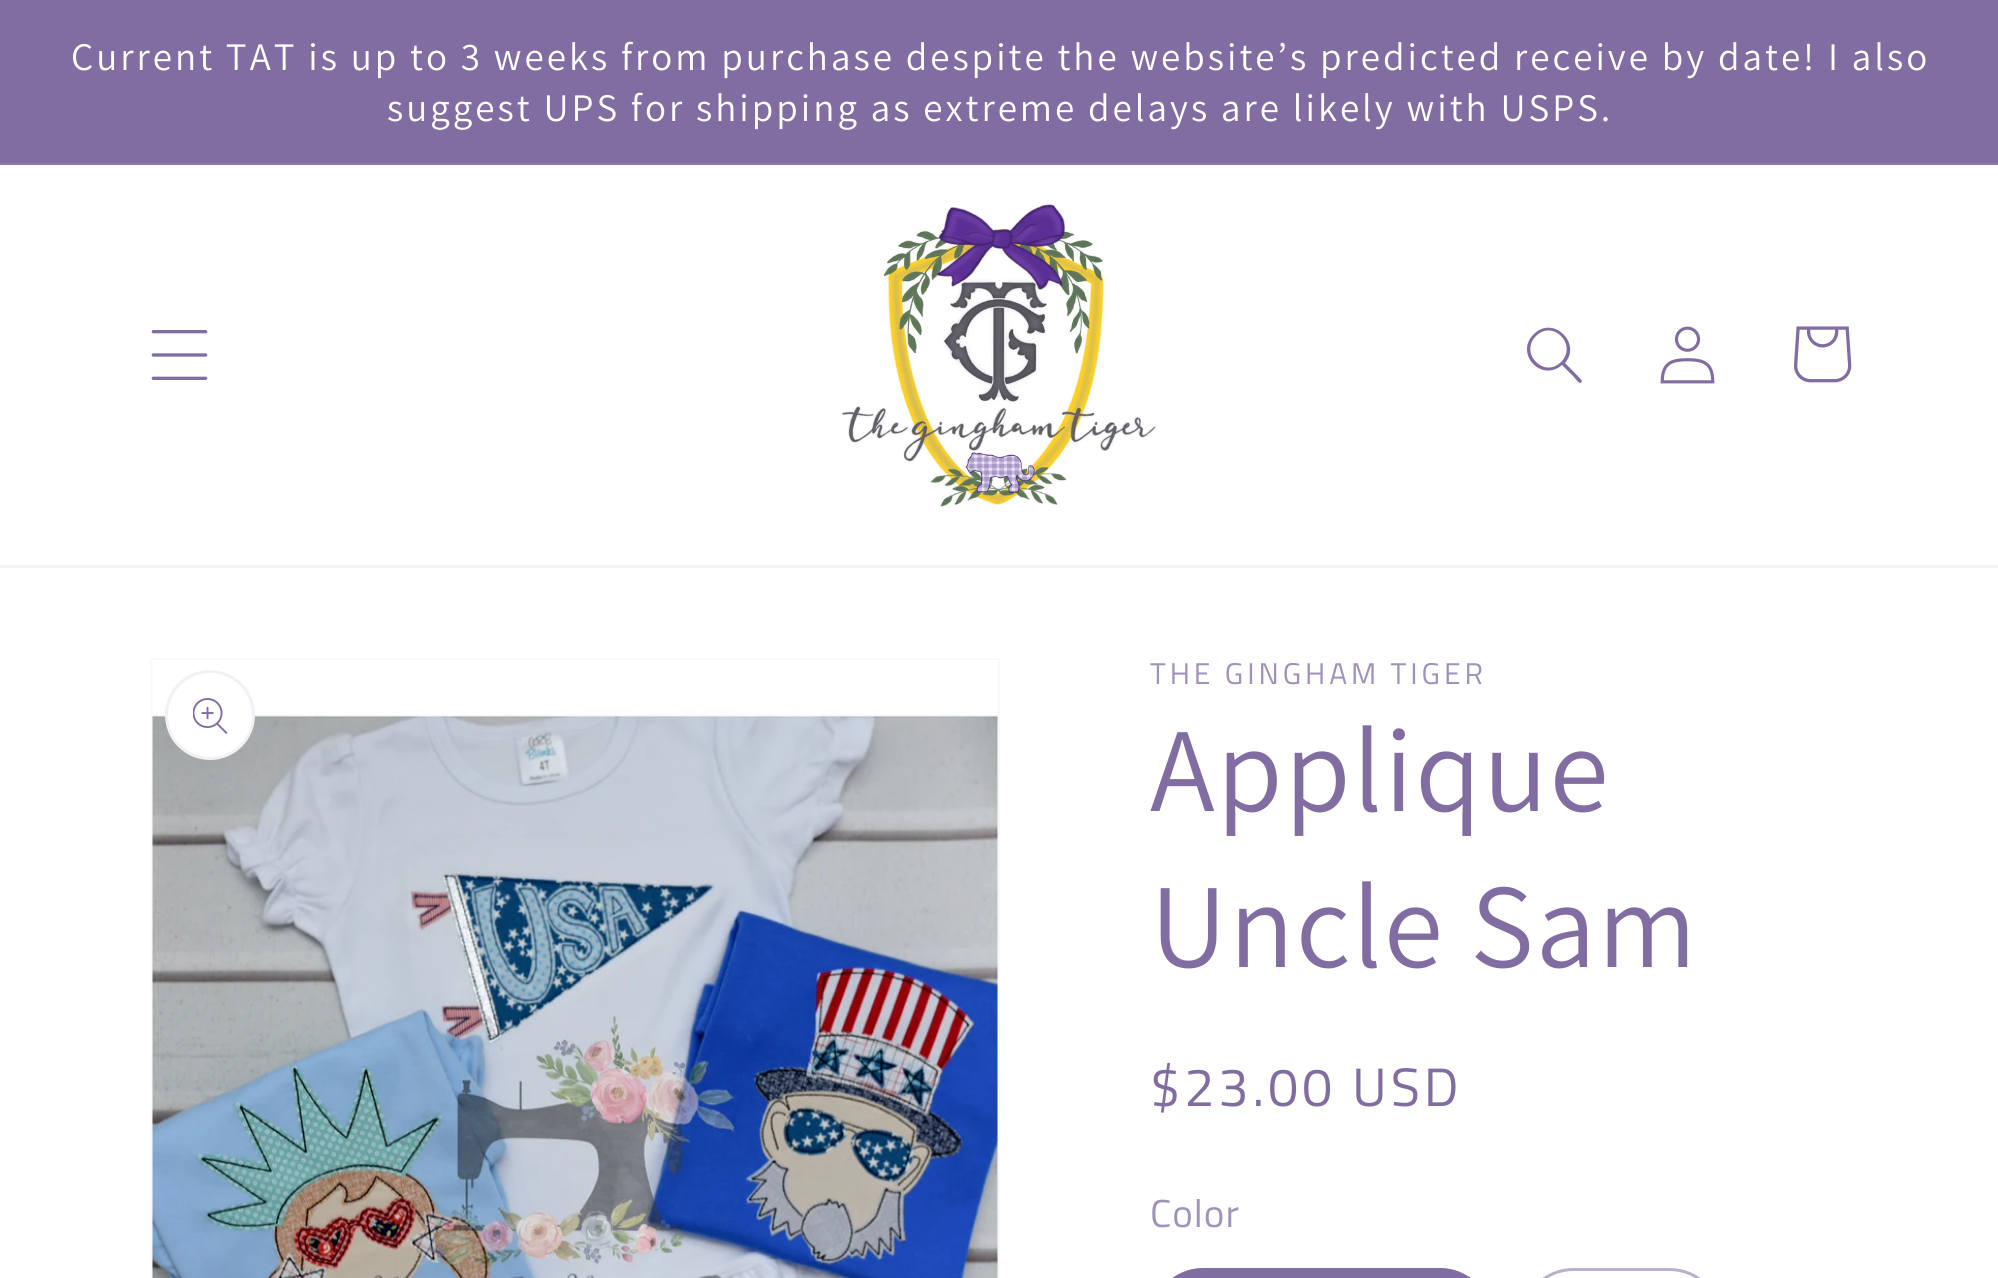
#include <cairo/cairo.h>
#include <math.h>
#include <stddef.h>

typedef struct { double x, y, w, h; unsigned color; } box_t;
static cairo_t *cr;

static void rgb(unsigned color)
{
	cairo_set_source_rgb(cr, (color >> 16) / 255.0, (color >> 8 & 255) / 255.0, (color & 255) / 255.0);
}

static void tracked(double x, double y, const char *s, double letter, double word)
{
	cairo_move_to(cr, x, y);
	while (*s) {
		char ch[5] = {0};
		int n = 0;
		do ch[n++] = *s++; while ((*s & 0xC0) == 0x80);
		cairo_show_text(cr, ch);
		cairo_rel_move_to(cr, letter + word * (*ch == ' '), 0);
	}
}

static void rrect(double x, double y, double w, double h, double r)
{
	cairo_new_sub_path(cr);
	cairo_arc(cr, x + w - r, y + h - r, r, 0, M_PI / 2);
	cairo_arc(cr, x + r, y + h - r, r, M_PI / 2, M_PI);
	cairo_arc(cr, x + r, y + r, r, M_PI, 1.5 * M_PI);
	cairo_arc(cr, x + w - r, y + r, r, 1.5 * M_PI, 2 * M_PI);
	cairo_close_path(cr);
}

static void image(const char *path, double x, double y, double w, double h)
{
	cairo_surface_t *image = cairo_image_surface_create_from_png(path);
	cairo_save(cr);
	cairo_set_source_surface(cr, image, x, y);
	cairo_rectangle(cr, x, y, w, h);
	cairo_fill(cr);
	cairo_restore(cr);
	cairo_surface_destroy(image);
}

int main(void) {
	cairo_surface_t *surface = cairo_image_surface_create(CAIRO_FORMAT_RGB24, 1998, 1278);
	cr = cairo_create(surface);
	cairo_font_options_t *options = cairo_font_options_create();
	cairo_font_options_set_hint_metrics(options, CAIRO_HINT_METRICS_OFF);
	cairo_font_options_set_hint_style(options, CAIRO_HINT_STYLE_NONE);
	cairo_set_font_options(cr, options);
	cairo_set_miter_limit(cr, 4);
	rgb(0xffffff);
	cairo_paint(cr);
	{
		static const box_t items[] = {
			{0, 0, 1998, 163, 0x826da3},
			{0, 163, 1998, 2, 0x8c79aa},
			{0, 565, 1998, 3, 0xf5f3f8},
		};
		for (size_t i = 0; i < sizeof items / sizeof *items; i++) {
			rgb(items[i].color);
			cairo_rectangle(cr, items[i].x, items[i].y, items[i].w, items[i].h);
			cairo_fill(cr);
		}
	}
	image("img/1.png", 151, 330, 57, 50);
	image("img/2.png", 842, 203, 314, 304);
	rgb(0x826da3);
	cairo_set_fill_rule(cr, CAIRO_FILL_RULE_EVEN_ODD);
	cairo_new_path(cr);
	cairo_move_to(cr, 1561, 362);
	cairo_curve_to(cr, 1544, 379, 1519, 353, 1536, 336);
	cairo_curve_to(cr, 1553, 319, 1578, 345, 1561, 362);
	cairo_close_path(cr);
	cairo_move_to(cr, 1562, 365);
	cairo_curve_to(cr, 1541, 383, 1514, 353, 1534, 334);
	cairo_curve_to(cr, 1553, 315, 1582, 343, 1565, 363);
	cairo_curve_to(cr, 1567, 365, 1582, 380, 1582, 381);
	cairo_line_to(cr, 1581, 383);
	cairo_curve_to(cr, 1579, 384, 1575, 378, 1574, 377);
	cairo_close_path(cr);
	cairo_fill(cr);
	image("img/3.png", 1660, 326, 55, 58);
	image("img/4.png", 1794, 326, 58, 57);
	cairo_rectangle(cr, 151.5, 659.5, 847, 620);
	rgb(0xf9f8fa);
	cairo_set_line_width(cr, 3);
	cairo_stroke(cr);
	image("img/5.png", 152, 660, 846, 618);
	rgb(0xffffff);
	cairo_arc(cr, 210, 715, 45, 0, 2 * M_PI);
	cairo_fill(cr);
	cairo_arc(cr, 210, 715, 43.5, 0, 2 * M_PI);
	cairo_set_source_rgba(cr, 0.51, 0.427, 0.639, 0.1);
	cairo_stroke(cr);
	image("img/6.png", 193, 698, 35, 36);
	rgb(0x826da3);
	rrect(1150, 1268, 343, 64, 53.5);
	cairo_fill(cr);
	rrect(1151.5, 1269.5, 340, 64, 52);
	cairo_set_source_rgba(cr, 0.51, 0.427, 0.639, 0.55);
	cairo_stroke(cr);
	rrect(1521.5, 1269.5, 200, 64, 52);
	rgb(0xbaafcc);
	cairo_stroke(cr);
	cairo_select_font_face(cr, "Assistant", CAIRO_FONT_SLANT_NORMAL, CAIRO_FONT_WEIGHT_NORMAL);
	cairo_set_font_size(cr, 39);
	rgb(0xffffff);
	tracked(71, 70, "Current TAT is up to 3 weeks from purchase despite the website’s predicted receive by date! I also", 3, 0);
	tracked(387, 121, "suggest UPS for shipping as extreme delays are likely with USPS.", 3, 0);
	cairo_select_font_face(cr, "Titillium Web", CAIRO_FONT_SLANT_NORMAL, CAIRO_FONT_WEIGHT_NORMAL);
	cairo_set_font_size(cr, 30);
	rgb(0xa192ba);
	tracked(1150, 684, "THE GINGHAM TIGER", 3.9, 0);
	cairo_select_font_face(cr, "Assistant", CAIRO_FONT_SLANT_NORMAL, CAIRO_FONT_WEIGHT_NORMAL);
	cairo_set_font_size(cr, 120);
	rgb(0x826da3);
	tracked(1150, 811, "Applique", 1.75, 0);
	tracked(1150, 967, "Uncle Sam", 1.75, 0);
	cairo_select_font_face(cr, "Titillium Web", CAIRO_FONT_SLANT_NORMAL, CAIRO_FONT_WEIGHT_NORMAL);
	cairo_set_font_size(cr, 54);
	tracked(1150, 1106, "$23.00 USD", 3.9, 0);
	cairo_set_font_size(cr, 39);
	rgb(0xa192ba);
	tracked(1150, 1227, "Color", 1, 0);
	cairo_surface_write_to_png(surface, "page.png");
	cairo_font_options_destroy(options);
	cairo_destroy(cr);
	cairo_surface_destroy(surface);
	return 0;
}
